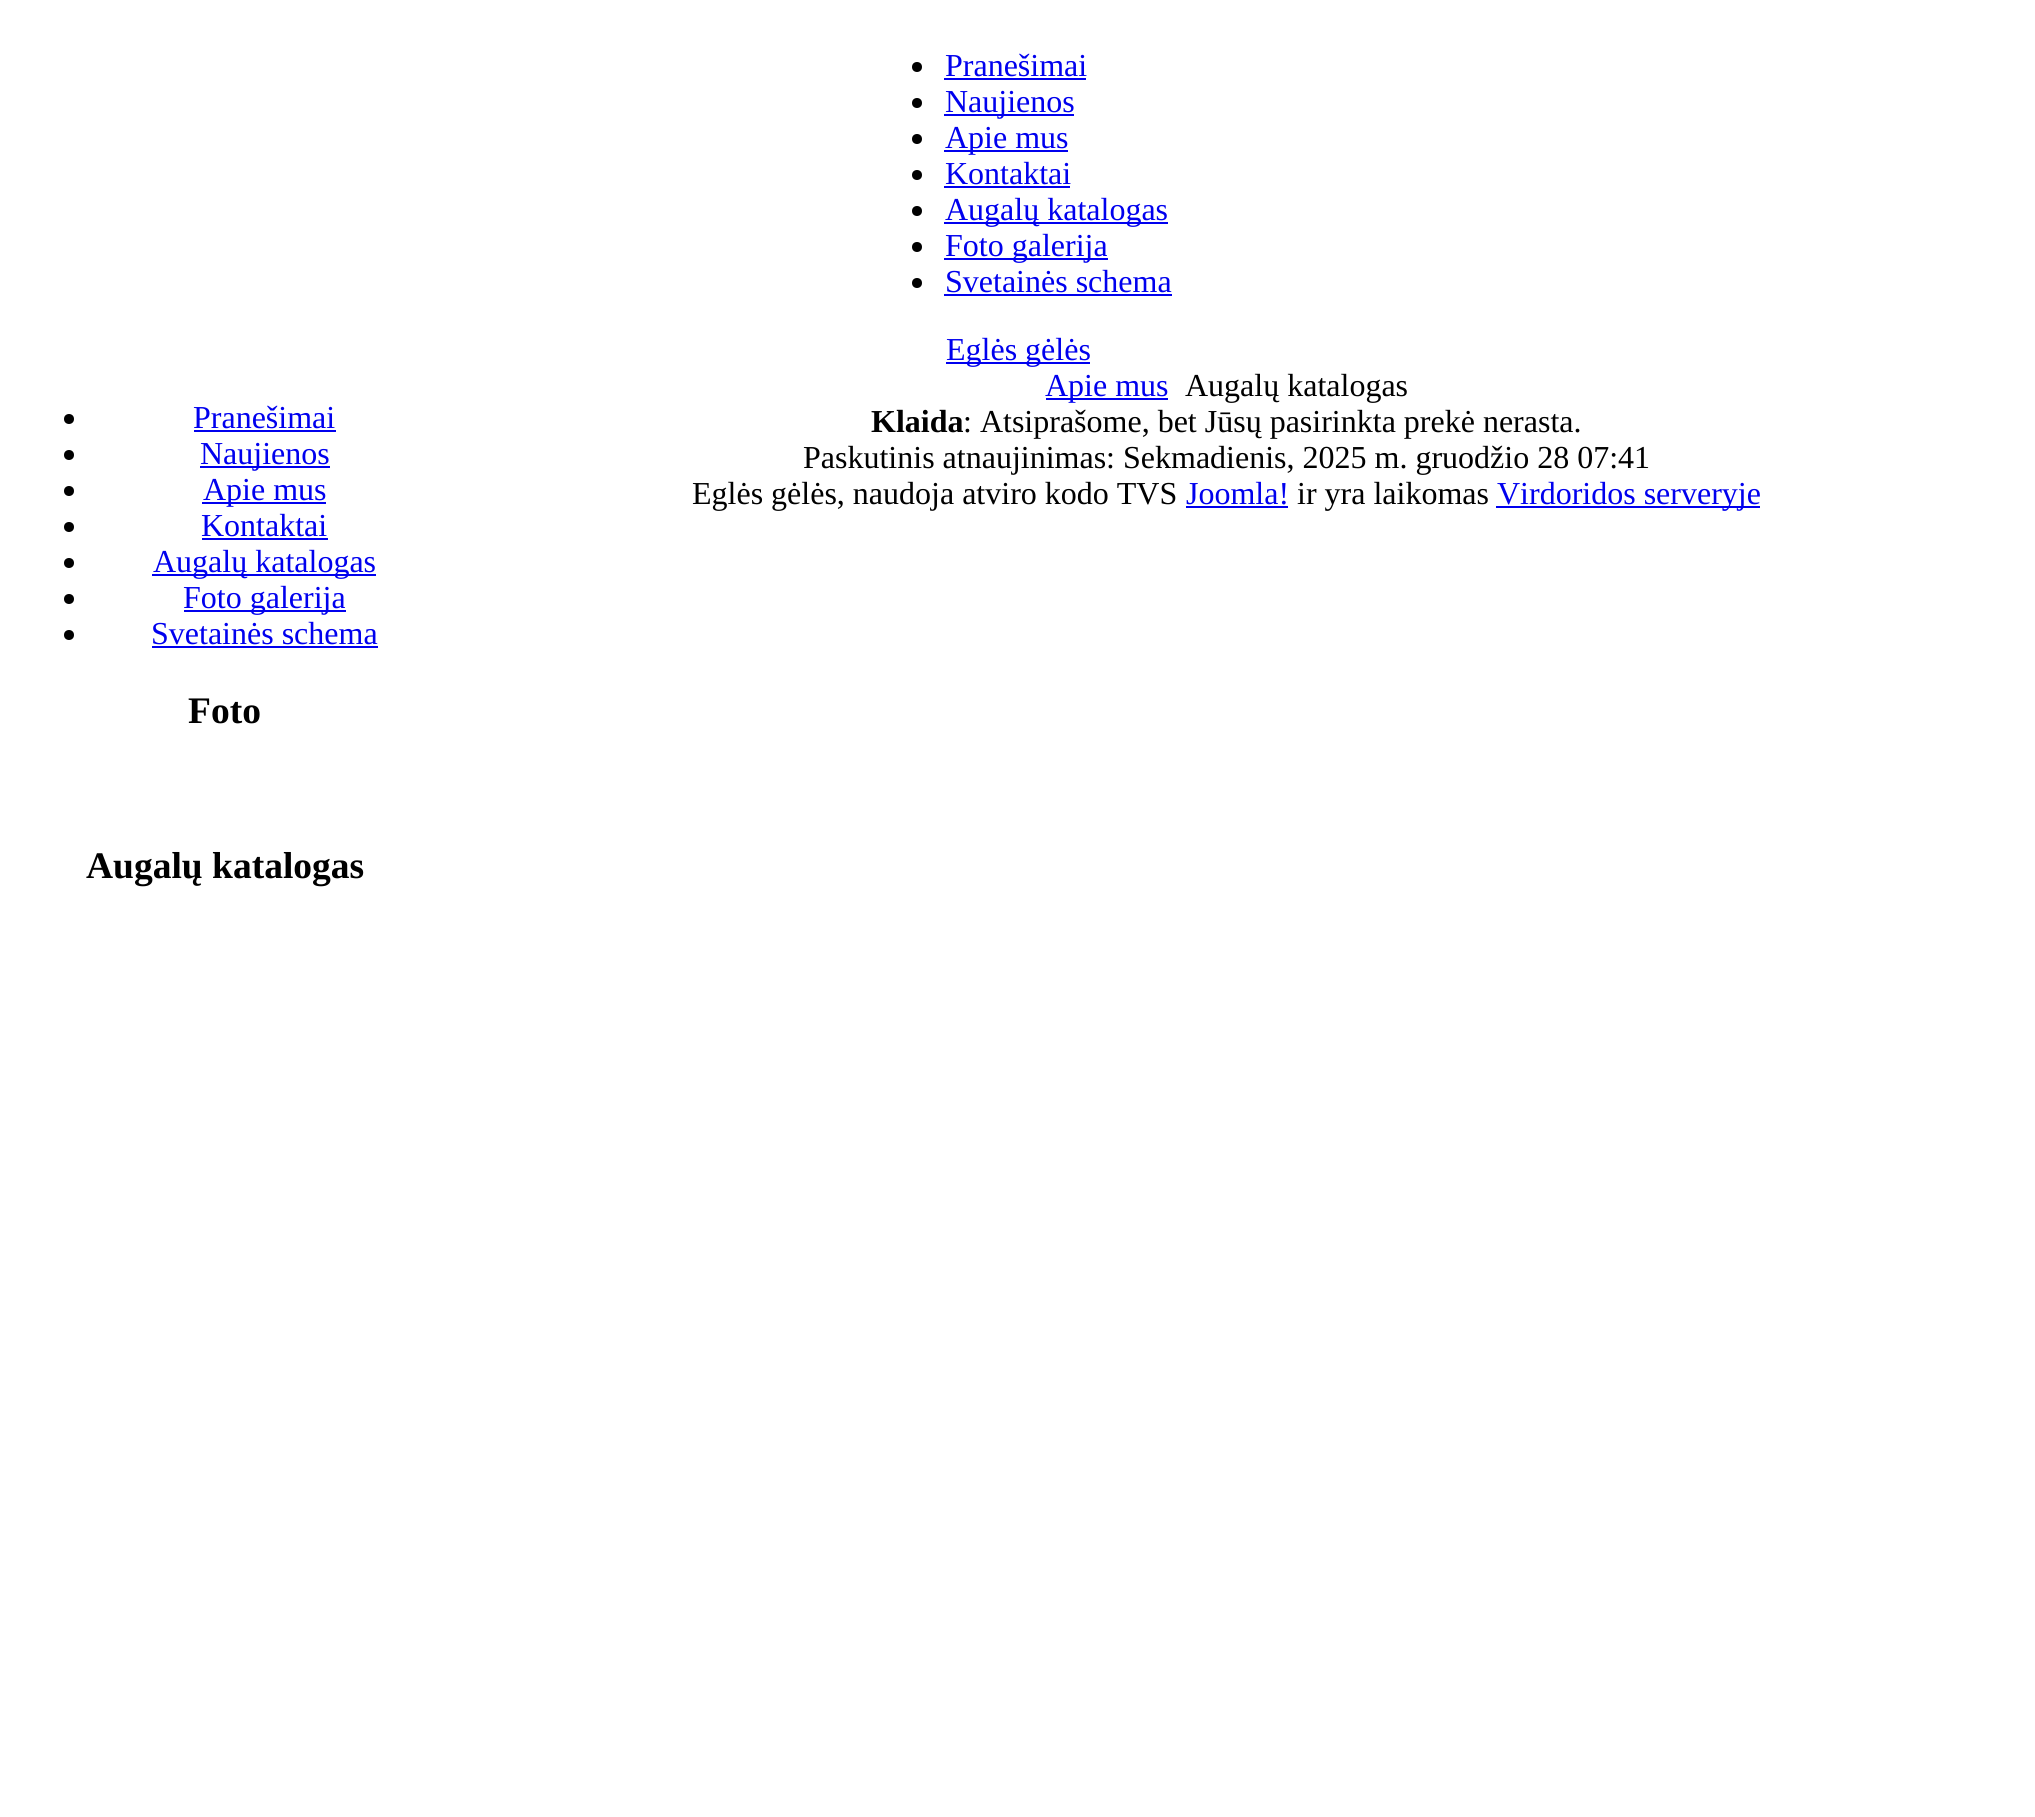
#include <cairo/cairo.h>
#include <math.h>
#include <stddef.h>

typedef struct { double x, y; const char *s; } line_t;
typedef struct { double x, y, w, h; unsigned color; } box_t;
static cairo_t *cr;

static void rgb(unsigned color)
{
	cairo_set_source_rgb(cr, (color >> 16) / 255.0, (color >> 8 & 255) / 255.0, (color & 255) / 255.0);
}

int main(void) {
	cairo_surface_t *surface = cairo_image_surface_create(CAIRO_FORMAT_RGB24, 2035, 1817);
	cr = cairo_create(surface);
	cairo_font_options_t *options = cairo_font_options_create();
	cairo_font_options_set_hint_metrics(options, CAIRO_HINT_METRICS_OFF);
	cairo_font_options_set_hint_style(options, CAIRO_HINT_STYLE_NONE);
	cairo_set_font_options(cr, options);
	cairo_set_miter_limit(cr, 4);
	rgb(0xffffff);
	cairo_paint(cr);
	rgb(0x000000);
	cairo_arc(cr, 917, 67, 5, 0, 2 * M_PI);
	cairo_fill(cr);
	rgb(0x0000ee);
	cairo_rectangle(cr, 944, 78, 142, 2);
	cairo_fill(cr);
	rgb(0x000000);
	cairo_arc(cr, 917, 103, 5, 0, 2 * M_PI);
	cairo_fill(cr);
	rgb(0x0000ee);
	cairo_rectangle(cr, 944, 114, 130, 2);
	cairo_fill(cr);
	rgb(0x000000);
	cairo_arc(cr, 917, 139, 5, 0, 2 * M_PI);
	cairo_fill(cr);
	rgb(0x0000ee);
	cairo_rectangle(cr, 944, 150, 124, 2);
	cairo_fill(cr);
	rgb(0x000000);
	cairo_arc(cr, 917, 175, 5, 0, 2 * M_PI);
	cairo_fill(cr);
	rgb(0x0000ee);
	cairo_rectangle(cr, 944, 186, 126, 2);
	cairo_fill(cr);
	rgb(0x000000);
	cairo_arc(cr, 917, 211, 5, 0, 2 * M_PI);
	cairo_fill(cr);
	rgb(0x0000ee);
	cairo_rectangle(cr, 944, 222, 224, 2);
	cairo_fill(cr);
	rgb(0x000000);
	cairo_arc(cr, 917, 247, 5, 0, 2 * M_PI);
	cairo_fill(cr);
	rgb(0x0000ee);
	cairo_rectangle(cr, 944, 258, 164, 2);
	cairo_fill(cr);
	rgb(0x000000);
	cairo_arc(cr, 917, 283, 5, 0, 2 * M_PI);
	cairo_fill(cr);
	rgb(0x0000ee);
	cairo_rectangle(cr, 944, 294, 228, 2);
	cairo_fill(cr);
	cairo_rectangle(cr, 946, 362, 144, 2);
	cairo_fill(cr);
	rgb(0x000000);
	cairo_arc(cr, 69, 419, 5, 0, 2 * M_PI);
	cairo_fill(cr);
	rgb(0x0000ee);
	cairo_rectangle(cr, 194, 430, 142, 2);
	cairo_fill(cr);
	rgb(0x000000);
	cairo_arc(cr, 69, 455, 5, 0, 2 * M_PI);
	cairo_fill(cr);
	rgb(0x0000ee);
	cairo_rectangle(cr, 200, 466, 130, 2);
	cairo_fill(cr);
	rgb(0x000000);
	cairo_arc(cr, 69, 491, 5, 0, 2 * M_PI);
	cairo_fill(cr);
	rgb(0x0000ee);
	cairo_rectangle(cr, 202, 502, 124, 2);
	cairo_fill(cr);
	rgb(0x000000);
	cairo_arc(cr, 69, 527, 5, 0, 2 * M_PI);
	cairo_fill(cr);
	rgb(0x0000ee);
	cairo_rectangle(cr, 202, 538, 126, 2);
	cairo_fill(cr);
	rgb(0x000000);
	cairo_arc(cr, 69, 563, 5, 0, 2 * M_PI);
	cairo_fill(cr);
	rgb(0x0000ee);
	cairo_rectangle(cr, 152, 574, 224, 2);
	cairo_fill(cr);
	rgb(0x000000);
	cairo_arc(cr, 69, 599, 5, 0, 2 * M_PI);
	cairo_fill(cr);
	rgb(0x0000ee);
	cairo_rectangle(cr, 184, 610, 162, 2);
	cairo_fill(cr);
	rgb(0x000000);
	cairo_arc(cr, 69, 635, 5, 0, 2 * M_PI);
	cairo_fill(cr);
	{
		static const box_t items[] = {
			{152, 646, 226, 2, 0x0000ee},
			{1046, 398, 122, 2, 0x0000ee},
			{1186, 506, 102, 2, 0x0000ee},
			{1496, 506, 264, 2, 0x0000ee},
		};
		for (size_t i = 0; i < sizeof items / sizeof *items; i++) {
			rgb(items[i].color);
			cairo_rectangle(cr, items[i].x, items[i].y, items[i].w, items[i].h);
			cairo_fill(cr);
		}
	}
	cairo_select_font_face(cr, "Liberation Serif", CAIRO_FONT_SLANT_NORMAL, CAIRO_FONT_WEIGHT_NORMAL);
	cairo_set_font_size(cr, 32);
	{
		static const line_t items[] = {
			{945, 76, "Pranešimai"},
			{945, 112, "Naujienos"},
			{945, 148, "Apie mus"},
			{945, 184, "Kontaktai"},
			{945, 220, "Augalų katalogas"},
			{945, 256, "Foto galerija"},
			{945, 292, "Svetainės schema"},
			{946, 360, "Eglės gėlės"},
			{193, 428, "Pranešimai"},
			{200, 464, "Naujienos"},
			{203, 500, "Apie mus"},
			{201, 536, "Kontaktai"},
			{153, 572, "Augalų katalogas"},
			{183, 608, "Foto galerija"},
			{151, 644, "Svetainės schema"},
		};
		for (size_t i = 0; i < sizeof items / sizeof *items; i++) {
			cairo_move_to(cr, items[i].x, items[i].y);
			cairo_show_text(cr, items[i].s);
		}
	}
	cairo_select_font_face(cr, "Liberation Serif", CAIRO_FONT_SLANT_NORMAL, CAIRO_FONT_WEIGHT_BOLD);
	cairo_set_font_size(cr, 37.5);
	rgb(0x000000);
	cairo_move_to(cr, 188, 723);
	cairo_show_text(cr, "Foto");
	cairo_move_to(cr, 86, 878);
	cairo_show_text(cr, "Augalų katalogas");
	cairo_select_font_face(cr, "Liberation Serif", CAIRO_FONT_SLANT_NORMAL, CAIRO_FONT_WEIGHT_NORMAL);
	cairo_set_font_size(cr, 32);
	rgb(0x0000ee);
	cairo_move_to(cr, 1045, 396);
	cairo_show_text(cr, "Apie mus");
	rgb(0x000000);
	cairo_move_to(cr, 1185, 396);
	cairo_show_text(cr, "Augalų katalogas");
	cairo_select_font_face(cr, "Liberation Serif", CAIRO_FONT_SLANT_NORMAL, CAIRO_FONT_WEIGHT_BOLD);
	cairo_move_to(cr, 871, 432);
	cairo_show_text(cr, "Klaida");
	cairo_select_font_face(cr, "Liberation Serif", CAIRO_FONT_SLANT_NORMAL, CAIRO_FONT_WEIGHT_NORMAL);
	{
		static const line_t items[] = {
			{963, 432, ": Atsiprašome, bet Jūsų pasirinkta prekė nerasta."},
			{803, 468, "Paskutinis atnaujinimas: Sekmadienis, 2025 m. gruodžio 28 07:41"},
			{692, 504, "Eglės gėlės, naudoja atviro kodo TVS"},
		};
		for (size_t i = 0; i < sizeof items / sizeof *items; i++) {
			cairo_move_to(cr, items[i].x, items[i].y);
			cairo_show_text(cr, items[i].s);
		}
	}
	rgb(0x0000ee);
	cairo_move_to(cr, 1186, 504);
	cairo_show_text(cr, "Joomla!");
	rgb(0x000000);
	cairo_move_to(cr, 1297, 504);
	cairo_show_text(cr, "ir yra laikomas");
	rgb(0x0000ee);
	cairo_move_to(cr, 1497, 504);
	cairo_show_text(cr, "Virdoridos serveryje");
	cairo_surface_write_to_png(surface, "page.png");
	cairo_font_options_destroy(options);
	cairo_destroy(cr);
	cairo_surface_destroy(surface);
	return 0;
}
